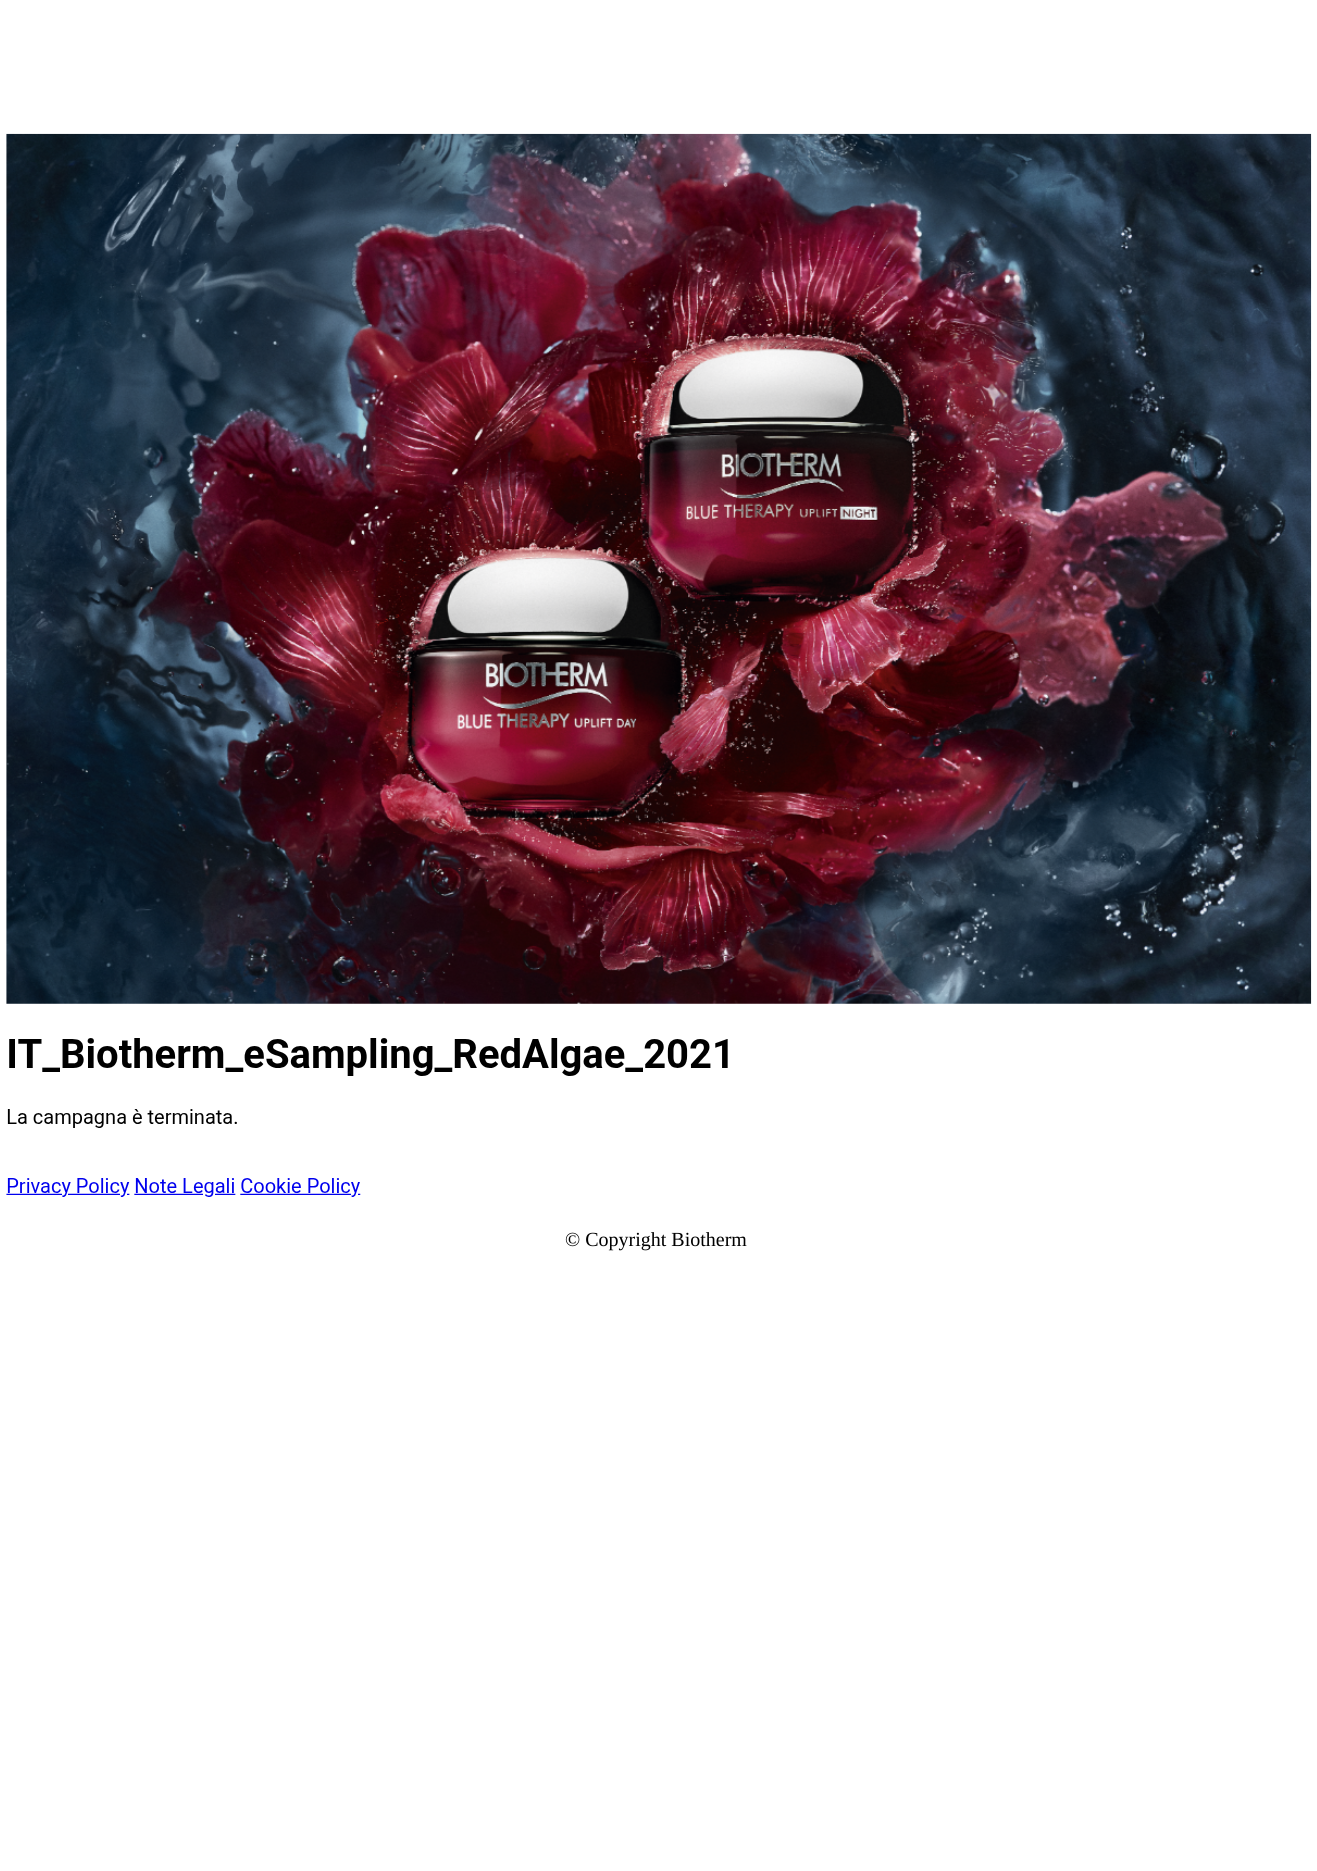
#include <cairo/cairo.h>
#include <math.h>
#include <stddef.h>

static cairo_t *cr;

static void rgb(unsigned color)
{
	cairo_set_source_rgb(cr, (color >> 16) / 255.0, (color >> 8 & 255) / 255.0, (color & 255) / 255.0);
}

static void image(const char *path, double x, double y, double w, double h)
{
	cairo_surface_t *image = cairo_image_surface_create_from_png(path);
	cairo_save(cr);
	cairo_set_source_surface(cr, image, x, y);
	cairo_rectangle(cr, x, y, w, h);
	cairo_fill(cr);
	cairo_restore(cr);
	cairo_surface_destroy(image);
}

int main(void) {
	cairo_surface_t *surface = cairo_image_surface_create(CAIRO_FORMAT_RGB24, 1317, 1871);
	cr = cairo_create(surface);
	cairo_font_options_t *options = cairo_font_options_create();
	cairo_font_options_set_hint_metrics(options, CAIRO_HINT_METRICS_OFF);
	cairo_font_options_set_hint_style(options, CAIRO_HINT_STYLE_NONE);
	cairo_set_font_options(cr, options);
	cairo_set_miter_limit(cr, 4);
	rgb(0xffffff);
	cairo_paint(cr);
	image("img/1.png", 6, 133, 1306, 1064);
	cairo_select_font_face(cr, "Liberation Serif", CAIRO_FONT_SLANT_NORMAL, CAIRO_FONT_WEIGHT_NORMAL);
	cairo_set_font_size(cr, 20);
	rgb(0x000000);
	cairo_move_to(cr, 565, 1246);
	cairo_show_text(cr, "© Copyright Biotherm");
	cairo_surface_write_to_png(surface, "page.png");
	cairo_font_options_destroy(options);
	cairo_destroy(cr);
	cairo_surface_destroy(surface);
	return 0;
}
